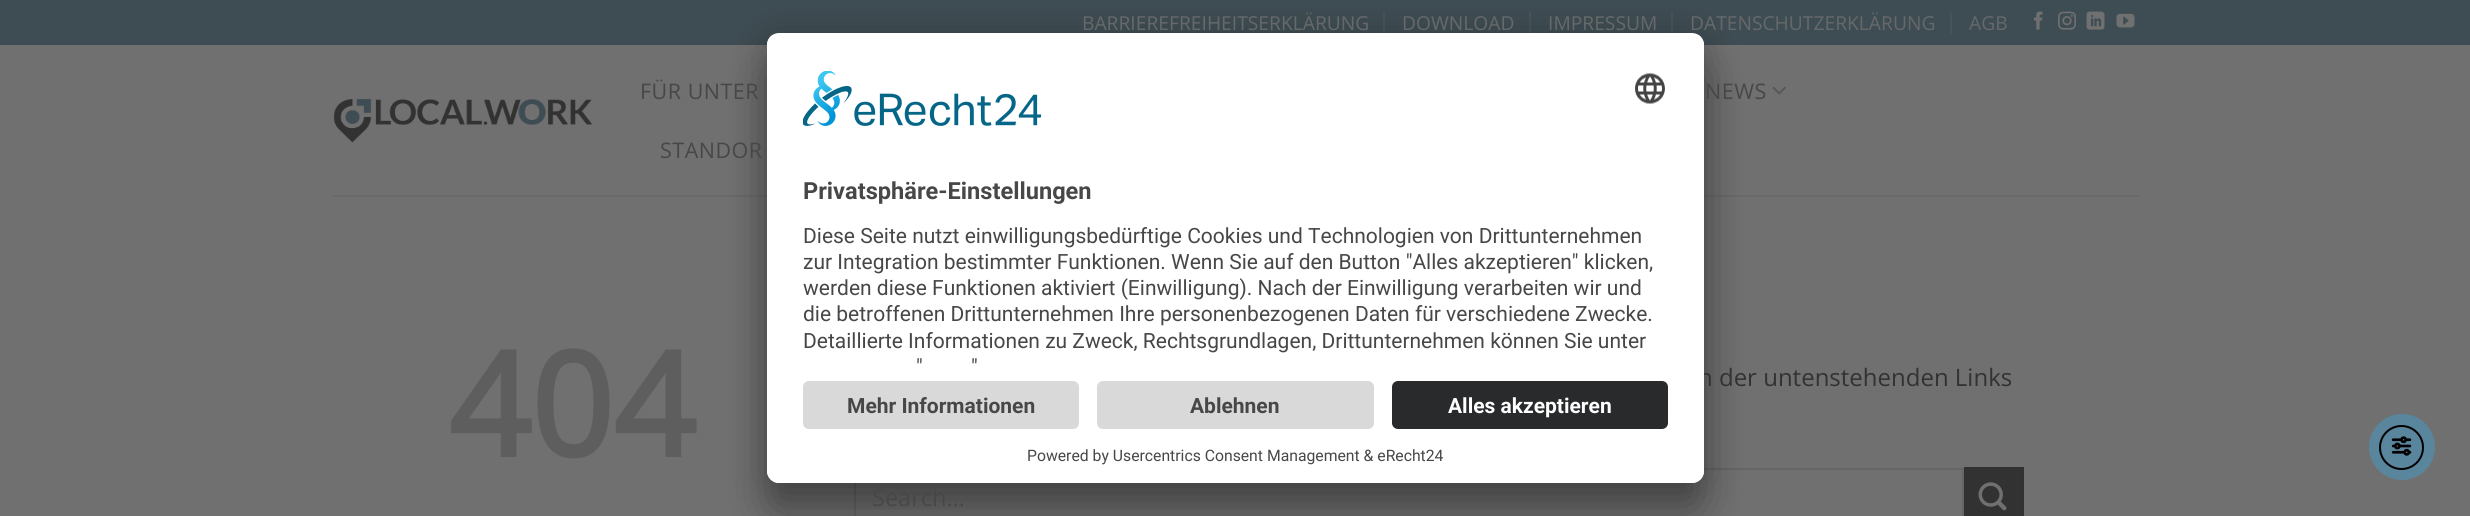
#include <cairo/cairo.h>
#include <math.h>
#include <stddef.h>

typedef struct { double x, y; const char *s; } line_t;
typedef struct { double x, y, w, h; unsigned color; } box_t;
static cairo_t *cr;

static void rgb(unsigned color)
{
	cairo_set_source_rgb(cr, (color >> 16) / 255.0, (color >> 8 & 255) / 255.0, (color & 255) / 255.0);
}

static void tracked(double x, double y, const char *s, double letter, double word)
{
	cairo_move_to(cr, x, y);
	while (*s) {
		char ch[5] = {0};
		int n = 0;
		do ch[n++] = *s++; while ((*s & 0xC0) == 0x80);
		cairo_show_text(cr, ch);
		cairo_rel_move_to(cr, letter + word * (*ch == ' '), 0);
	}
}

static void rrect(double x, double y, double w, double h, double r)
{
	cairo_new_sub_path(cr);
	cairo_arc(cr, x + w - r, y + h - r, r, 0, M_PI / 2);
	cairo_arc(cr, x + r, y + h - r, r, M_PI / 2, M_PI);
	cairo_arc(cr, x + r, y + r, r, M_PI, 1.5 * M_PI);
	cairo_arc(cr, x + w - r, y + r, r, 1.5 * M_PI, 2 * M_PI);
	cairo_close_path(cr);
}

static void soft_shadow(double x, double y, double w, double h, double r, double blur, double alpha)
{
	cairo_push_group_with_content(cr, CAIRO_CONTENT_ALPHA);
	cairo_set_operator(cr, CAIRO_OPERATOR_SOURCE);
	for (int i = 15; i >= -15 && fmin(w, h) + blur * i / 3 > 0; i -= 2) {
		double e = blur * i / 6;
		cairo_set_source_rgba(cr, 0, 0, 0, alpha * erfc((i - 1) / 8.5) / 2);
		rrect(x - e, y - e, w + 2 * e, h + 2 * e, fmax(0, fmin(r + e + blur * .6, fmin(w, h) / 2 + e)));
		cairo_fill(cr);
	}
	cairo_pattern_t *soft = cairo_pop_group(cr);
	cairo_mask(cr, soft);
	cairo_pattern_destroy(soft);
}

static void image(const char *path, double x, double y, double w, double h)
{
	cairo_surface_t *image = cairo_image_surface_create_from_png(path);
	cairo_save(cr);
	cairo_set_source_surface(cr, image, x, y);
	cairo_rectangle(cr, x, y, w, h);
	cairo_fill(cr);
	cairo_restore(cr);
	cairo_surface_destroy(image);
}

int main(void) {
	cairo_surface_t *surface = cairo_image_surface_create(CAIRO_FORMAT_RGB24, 2470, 516);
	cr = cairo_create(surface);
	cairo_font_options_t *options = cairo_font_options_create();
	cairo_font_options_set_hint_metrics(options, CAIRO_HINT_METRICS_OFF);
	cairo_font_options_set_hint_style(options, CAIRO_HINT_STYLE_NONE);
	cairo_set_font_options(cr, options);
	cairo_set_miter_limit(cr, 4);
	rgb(0x707070);
	cairo_paint(cr);
	{
		static const box_t items[] = {
			{0, 0, 2470, 45, 0x3e4c53},
			{1383, 12, 2, 23, 0x485359},
			{1529, 12, 2, 23, 0x485359},
			{1671, 12, 2, 23, 0x485359},
			{1950, 12, 2, 23, 0x485359},
		};
		for (size_t i = 0; i < sizeof items / sizeof *items; i++) {
			rgb(items[i].color);
			cairo_rectangle(cr, items[i].x, items[i].y, items[i].w, items[i].h);
			cairo_fill(cr);
		}
	}
	image("img/1.png", 2034, 11, 9, 19);
	image("img/2.png", 2058, 11, 18, 19);
	image("img/3.png", 2086, 11, 19, 19);
	image("img/4.png", 2116, 13, 19, 15);
	image("img/5.png", 333, 99, 260, 44);
	image("img/6.png", 1772, 86, 14, 9);
	rgb(0x6a6a6a);
	cairo_rectangle(cr, 332, 195, 1807, 2);
	cairo_fill(cr);
	cairo_rectangle(cr, 855, 469, 1108, 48);
	rgb(0x666666);
	cairo_stroke(cr);
	rgb(0x323232);
	cairo_rectangle(cr, 1965, 468, 58, 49);
	cairo_fill_preserve(cr);
	rgb(0x313131);
	cairo_stroke(cr);
	image("img/7.png", 1978, 482, 29, 29);
	rgb(0x000000);
	soft_shadow(767, 63, 937, 450, 12, 21, 0.3);
	soft_shadow(767, 41, 937, 450, 12, 19.5, 0.22);
	rgb(0x59859d);
	cairo_arc(cr, 2402, 447, 33, 0, 2 * M_PI);
	cairo_fill(cr);
	cairo_arc(cr, 2401.5, 447.5, 21.5, 0, 2 * M_PI);
	rgb(0x000000);
	cairo_stroke(cr);
	image("img/10.png", 2391, 436, 21, 20);
	cairo_select_font_face(cr, "Open Sans", CAIRO_FONT_SLANT_NORMAL, CAIRO_FONT_WEIGHT_NORMAL);
	cairo_set_font_size(cr, 19.25);
	rgb(0x66696a);
	{
		static const line_t items[] = {
			{1082, 30, "BARRIEREFREIHEITSERKLÄRUNG"},
			{1402, 30, "DOWNLOAD"},
			{1548, 30, "IMPRESSUM"},
			{1690, 30, "DATENSCHUTZERKLÄRUNG"},
			{1969, 30, "AGB"},
		};
		for (size_t i = 0; i < sizeof items / sizeof *items; i++) {
			cairo_move_to(cr, items[i].x, items[i].y);
			cairo_show_text(cr, items[i].s);
		}
	}
	cairo_set_font_size(cr, 21.5);
	rgb(0x474747);
	{
		static const line_t items[] = {
			{640, 99, "FÜR UNTER"},
			{1705, 99, "NEWS"},
			{660, 158, "STANDOR"},
		};
		for (size_t i = 0; i < sizeof items / sizeof *items; i++) {
			tracked(items[i].x, items[i].y, items[i].s, 0.5, 0);
		}
	}
	cairo_select_font_face(cr, "Open Sans", CAIRO_FONT_SLANT_NORMAL, CAIRO_FONT_WEIGHT_BOLD);
	cairo_set_font_size(cr, 144);
	rgb(0x5e5e5e);
	cairo_move_to(cr, 448, 457);
	cairo_show_text(cr, "404");
	cairo_select_font_face(cr, "Open Sans", CAIRO_FONT_SLANT_NORMAL, CAIRO_FONT_WEIGHT_NORMAL);
	cairo_set_font_size(cr, 24);
	rgb(0x323232);
	cairo_move_to(cr, 1698, 386);
	cairo_show_text(cr, "n der untenstehenden Links");
	cairo_set_font_size(cr, 23.5);
	rgb(0x474747);
	cairo_move_to(cr, 872, 506);
	cairo_show_text(cr, "Search…");
	rgb(0xffffff);
	rrect(767, 33, 937, 450, 12);
	cairo_fill(cr);
	cairo_save(cr);
	rrect(767, 33, 937, 450, 12);
	cairo_clip(cr);
	cairo_new_path(cr);
	cairo_move_to(cr, 779, 33);
	cairo_line_to(cr, 1692, 33);
	cairo_curve_to(cr, 1698.5, 33, 1704, 38.5, 1704, 45);
	cairo_line_to(cr, 1704, 369);
	cairo_line_to(cr, 767, 369);
	cairo_line_to(cr, 767, 45);
	cairo_curve_to(cr, 767, 38.5, 772.5, 33, 779, 33);
	cairo_close_path(cr);
	cairo_clip(cr);
	cairo_rectangle(cr, 767, 35, 937, 334);
	cairo_fill(cr);
	cairo_restore(cr);
	image("img/8.png", 803, 71, 239, 55);
	image("img/9.png", 1635, 73, 30, 31);
	cairo_select_font_face(cr, "Roboto", CAIRO_FONT_SLANT_NORMAL, CAIRO_FONT_WEIGHT_BOLD);
	cairo_set_font_size(cr, 23.6);
	rgb(0x474747);
	cairo_move_to(cr, 803, 199);
	cairo_show_text(cr, "Privatsphäre-Einstellungen");
	cairo_select_font_face(cr, "Roboto", CAIRO_FONT_SLANT_NORMAL, CAIRO_FONT_WEIGHT_NORMAL);
	cairo_set_font_size(cr, 21);
	{
		static const line_t items[] = {
			{803, 243, "Diese Seite nutzt einwilligungsbedürftige Cookies und Technologien von Drittunternehmen"},
			{803, 269, "zur Integration bestimmter Funktionen. Wenn Sie auf den Button \"Alles akzeptieren\" klicken,"},
			{803, 295, "werden diese Funktionen aktiviert (Einwilligung). Nach der Einwilligung verarbeiten wir und"},
			{803, 321, "die betroffenen Drittunternehmen Ihre personenbezogenen Daten für verschiedene Zwecke."},
			{803, 348, "Detaillierte Informationen zu Zweck, Rechtsgrundlagen, Drittunternehmen können Sie unter"},
			{916, 374, "\""},
			{971, 374, "\""},
		};
		for (size_t i = 0; i < sizeof items / sizeof *items; i++) {
			cairo_move_to(cr, items[i].x, items[i].y);
			cairo_show_text(cr, items[i].s);
		}
	}
	rgb(0xffffff);
	cairo_new_path(cr);
	cairo_move_to(cr, 767, 369);
	cairo_line_to(cr, 1704, 369);
	cairo_line_to(cr, 1704, 471);
	cairo_curve_to(cr, 1704, 477.5, 1698.5, 483, 1692, 483);
	cairo_line_to(cr, 779, 483);
	cairo_curve_to(cr, 772.5, 483, 767, 477.5, 767, 471);
	cairo_close_path(cr);
	cairo_fill(cr);
	rgb(0xd9d9d9);
	rrect(803, 381, 276, 48, 6);
	cairo_fill(cr);
	cairo_select_font_face(cr, "Roboto", CAIRO_FONT_SLANT_NORMAL, CAIRO_FONT_WEIGHT_BOLD);
	rgb(0x474747);
	cairo_move_to(cr, 847, 413);
	cairo_show_text(cr, "Mehr Informationen");
	rgb(0xd9d9d9);
	rrect(1097, 381, 277, 48, 6);
	cairo_fill(cr);
	rgb(0x474747);
	cairo_move_to(cr, 1190, 413);
	cairo_show_text(cr, "Ablehnen");
	rgb(0x292a2b);
	rrect(1392, 381, 276, 48, 6);
	cairo_fill(cr);
	rgb(0xffffff);
	cairo_move_to(cr, 1448, 413);
	cairo_show_text(cr, "Alles akzeptieren");
	cairo_select_font_face(cr, "Roboto", CAIRO_FONT_SLANT_NORMAL, CAIRO_FONT_WEIGHT_NORMAL);
	cairo_set_font_size(cr, 15.75);
	rgb(0x474747);
	cairo_move_to(cr, 1027, 461);
	cairo_show_text(cr, "Powered by Usercentrics Consent Management & eRecht24");
	cairo_surface_write_to_png(surface, "page.png");
	cairo_font_options_destroy(options);
	cairo_destroy(cr);
	cairo_surface_destroy(surface);
	return 0;
}
